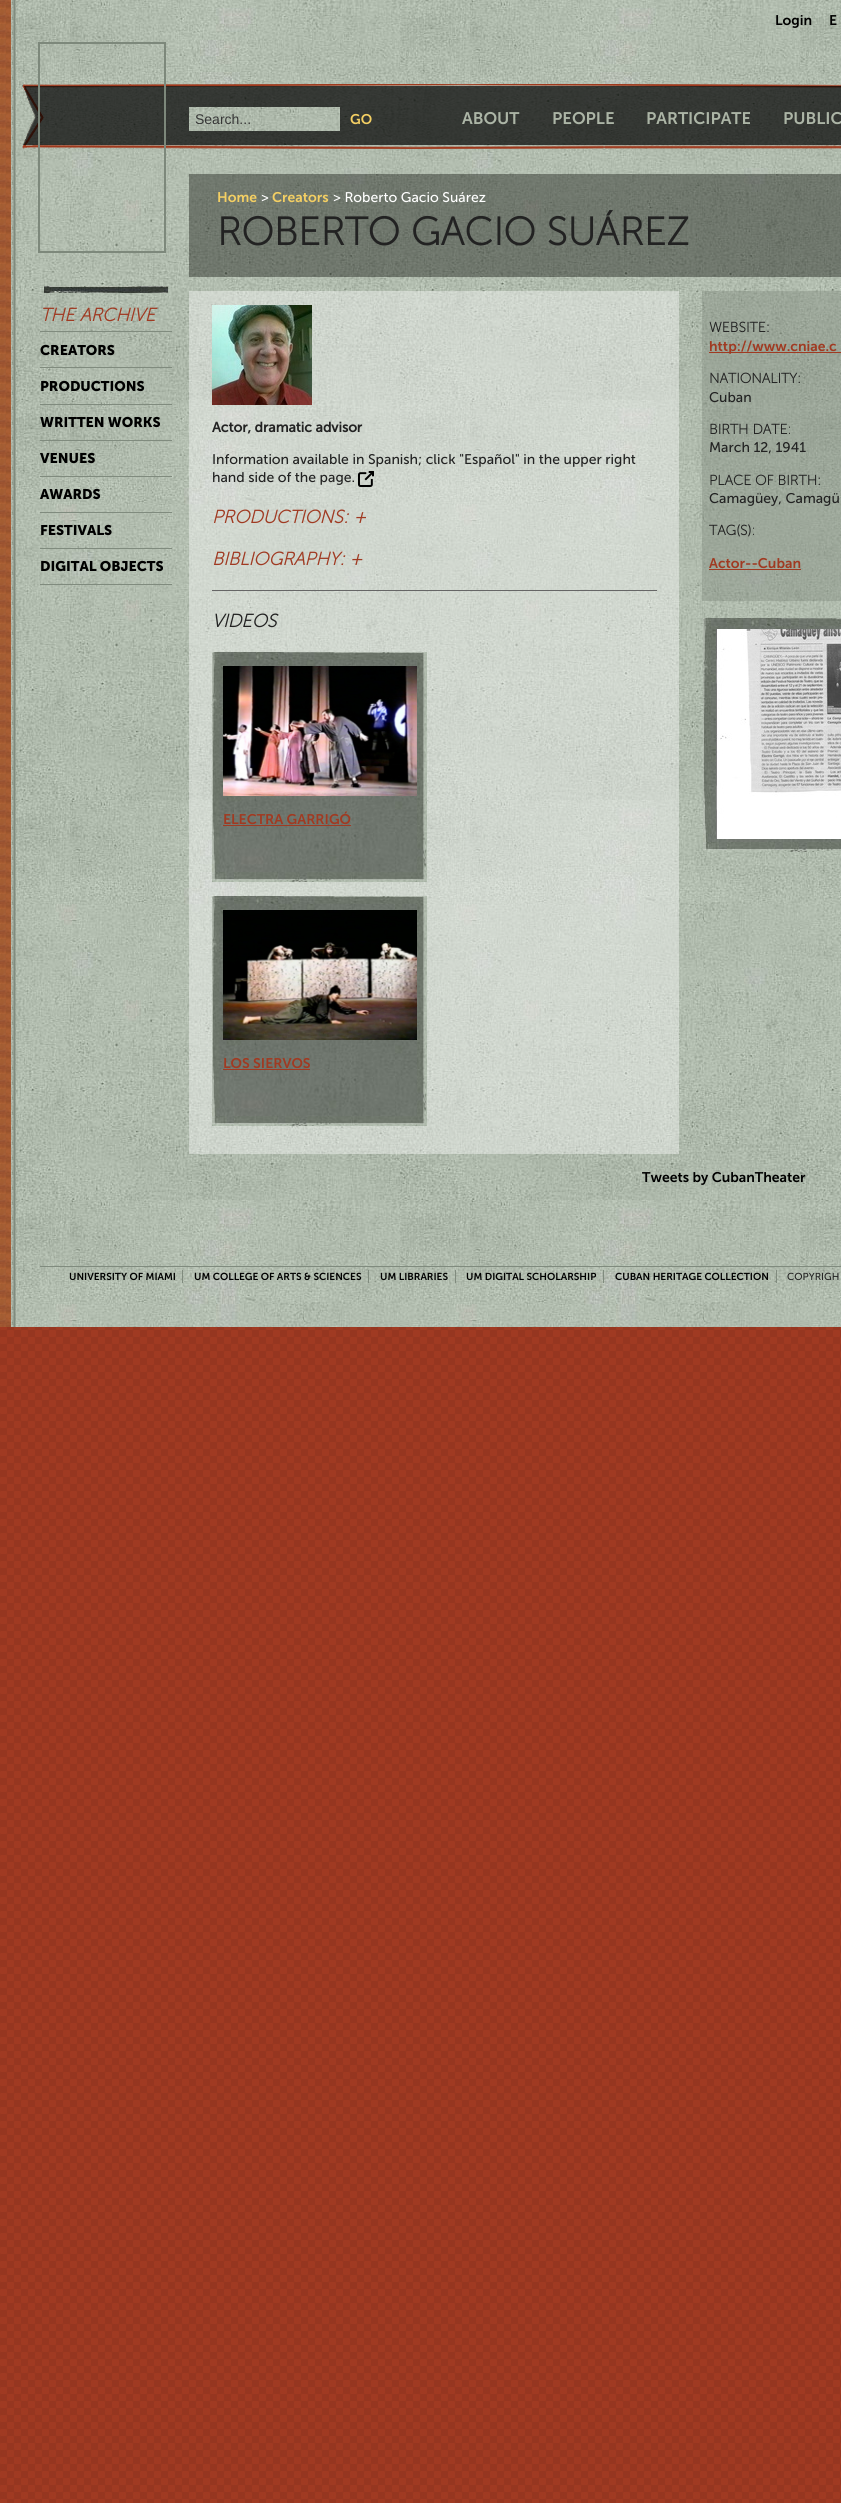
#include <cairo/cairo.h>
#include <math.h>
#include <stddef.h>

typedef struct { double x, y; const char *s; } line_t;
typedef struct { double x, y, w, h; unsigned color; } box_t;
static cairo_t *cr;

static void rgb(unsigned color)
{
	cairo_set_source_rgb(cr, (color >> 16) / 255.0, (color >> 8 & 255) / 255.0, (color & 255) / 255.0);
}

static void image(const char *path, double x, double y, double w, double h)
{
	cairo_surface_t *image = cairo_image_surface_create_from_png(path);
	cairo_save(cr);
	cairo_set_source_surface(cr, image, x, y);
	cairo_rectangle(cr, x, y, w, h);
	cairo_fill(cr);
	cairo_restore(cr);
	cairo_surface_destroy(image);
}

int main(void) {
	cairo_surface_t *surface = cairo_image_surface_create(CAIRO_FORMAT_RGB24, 841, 2503);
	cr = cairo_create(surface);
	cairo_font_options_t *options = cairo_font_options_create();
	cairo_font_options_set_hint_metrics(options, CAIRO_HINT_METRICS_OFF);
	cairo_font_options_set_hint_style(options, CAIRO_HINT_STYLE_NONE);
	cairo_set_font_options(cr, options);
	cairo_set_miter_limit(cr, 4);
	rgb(0xffffff);
	cairo_paint(cr);
	image("img/1.png", 0, 1327, 841, 1176);
	image("img/2.png", 16, 0, 825, 1327);
	image("img/3.png", 0, 0, 16, 1327);
	image("img/4.png", 20, 84, 821, 65);
	cairo_rectangle(cr, 39, 43, 126, 209);
	rgb(0x7d887b);
	cairo_stroke(cr);
	image("img/5.png", 189, 107, 151, 24);
	image("img/6.png", 44, 286, 124, 7);
	rgb(0x808b7e);
	cairo_rectangle(cr, 40, 331, 132, 1);
	cairo_fill(cr);
	cairo_rectangle(cr, 40, 367, 132, 1);
	cairo_fill(cr);
	cairo_rectangle(cr, 40, 404, 132, 1);
	cairo_fill(cr);
	cairo_rectangle(cr, 40, 440, 132, 1);
	cairo_fill(cr);
	cairo_rectangle(cr, 40, 476, 132, 1);
	cairo_fill(cr);
	cairo_rectangle(cr, 40, 512, 132, 1);
	cairo_fill(cr);
	cairo_rectangle(cr, 40, 548, 132, 1);
	cairo_fill(cr);
	cairo_rectangle(cr, 40, 584, 132, 1);
	cairo_fill(cr);
	cairo_set_source_rgba(cr, 0.051, 0.059, 0.047, 0.4);
	cairo_rectangle(cr, 189, 174, 652, 103);
	cairo_fill(cr);
	cairo_set_source_rgba(cr, 1, 1, 1, 0.4);
	cairo_rectangle(cr, 189, 291, 490, 863);
	cairo_fill(cr);
	image("img/7.png", 212, 305, 100, 100);
	image("img/8.png", 358, 471, 16, 16);
	rgb(0x666666);
	cairo_rectangle(cr, 212, 590, 445, 1);
	cairo_fill(cr);
	image("img/9.png", 212, 652, 215, 230);
	image("img/10.png", 223, 666, 194, 130);
	rgb(0xa03a22);
	cairo_rectangle(cr, 223, 825, 128, 1);
	cairo_fill(cr);
	image("img/9.png", 212, 896, 215, 230);
	image("img/11.png", 223, 910, 194, 130);
	cairo_rectangle(cr, 223, 1069, 87, 1);
	cairo_fill(cr);
	cairo_set_source_rgba(cr, 0.502, 0.545, 0.494, 0.4);
	cairo_rectangle(cr, 702, 291, 139, 310);
	cairo_fill(cr);
	rgb(0xa03a22);
	cairo_rectangle(cr, 709, 352, 132, 1);
	cairo_fill(cr);
	cairo_rectangle(cr, 709, 569, 92, 1);
	cairo_fill(cr);
	image("img/12.png", 703, 618, 138, 234);
	image("img/13.png", 716, 629, 125, 210);
	{
		static const box_t items[] = {
			{40, 1266, 801, 1, 0x808b7e},
			{182, 1270, 1, 13, 0x808b7e},
			{368, 1270, 1, 13, 0x808b7e},
			{455, 1270, 1, 13, 0x808b7e},
			{603, 1270, 1, 13, 0x808b7e},
			{776, 1270, 1, 13, 0x808b7e},
		};
		for (size_t i = 0; i < sizeof items / sizeof *items; i++) {
			rgb(items[i].color);
			cairo_rectangle(cr, items[i].x, items[i].y, items[i].w, items[i].h);
			cairo_fill(cr);
		}
	}
	cairo_select_font_face(cr, "Museo Sans SemiBold", CAIRO_FONT_SLANT_NORMAL, CAIRO_FONT_WEIGHT_NORMAL);
	cairo_set_font_size(cr, 14);
	rgb(0x000000);
	cairo_move_to(cr, 775, 25);
	cairo_show_text(cr, "Login");
	cairo_move_to(cr, 829, 25);
	cairo_show_text(cr, "E");
	cairo_select_font_face(cr, "Liberation Sans", CAIRO_FONT_SLANT_NORMAL, CAIRO_FONT_WEIGHT_NORMAL);
	rgb(0x363636);
	cairo_move_to(cr, 195, 124);
	cairo_show_text(cr, "Search...");
	cairo_select_font_face(cr, "Museo Sans SemiBold", CAIRO_FONT_SLANT_NORMAL, CAIRO_FONT_WEIGHT_NORMAL);
	rgb(0xf4cf63);
	cairo_move_to(cr, 350, 124);
	cairo_show_text(cr, "GO");
	cairo_set_font_size(cr, 16.75);
	rgb(0xacb5a6);
	{
		static const line_t items[] = {
			{462, 124, "ABOUT"},
			{552, 124, "PEOPLE"},
			{646, 124, "PARTICIPATE"},
			{783, 124, "PUBLIC"},
		};
		for (size_t i = 0; i < sizeof items / sizeof *items; i++) {
			cairo_move_to(cr, items[i].x, items[i].y);
			cairo_show_text(cr, items[i].s);
		}
	}
	cairo_select_font_face(cr, "Museo Sans", CAIRO_FONT_SLANT_ITALIC, CAIRO_FONT_WEIGHT_BOLD);
	cairo_set_font_size(cr, 18.25);
	rgb(0xa03a22);
	cairo_move_to(cr, 40, 321);
	cairo_show_text(cr, "THE ARCHIVE");
	cairo_select_font_face(cr, "Museo Sans", CAIRO_FONT_SLANT_NORMAL, CAIRO_FONT_WEIGHT_BOLD);
	cairo_set_font_size(cr, 14);
	rgb(0x000000);
	{
		static const line_t items[] = {
			{40, 355, "CREATORS"},
			{40, 391, "PRODUCTIONS"},
			{40, 427, "WRITTEN WORKS"},
			{40, 463, "VENUES"},
			{40, 499, "AWARDS"},
			{40, 535, "FESTIVALS"},
			{40, 571, "DIGITAL OBJECTS"},
		};
		for (size_t i = 0; i < sizeof items / sizeof *items; i++) {
			cairo_move_to(cr, items[i].x, items[i].y);
			cairo_show_text(cr, items[i].s);
		}
	}
	cairo_select_font_face(cr, "Museo Sans SemiBold", CAIRO_FONT_SLANT_NORMAL, CAIRO_FONT_WEIGHT_NORMAL);
	rgb(0xf4cf63);
	cairo_move_to(cr, 217, 202);
	cairo_show_text(cr, "Home");
	cairo_select_font_face(cr, "Museo Sans", CAIRO_FONT_SLANT_NORMAL, CAIRO_FONT_WEIGHT_NORMAL);
	rgb(0xffffff);
	cairo_move_to(cr, 261, 202);
	cairo_show_text(cr, ">");
	cairo_select_font_face(cr, "Museo Sans SemiBold", CAIRO_FONT_SLANT_NORMAL, CAIRO_FONT_WEIGHT_NORMAL);
	rgb(0xf4cf63);
	cairo_move_to(cr, 272, 202);
	cairo_show_text(cr, "Creators");
	cairo_select_font_face(cr, "Museo Sans", CAIRO_FONT_SLANT_NORMAL, CAIRO_FONT_WEIGHT_NORMAL);
	rgb(0xffffff);
	cairo_move_to(cr, 333, 202);
	cairo_show_text(cr, "> Roberto Gacio Suárez");
	cairo_select_font_face(cr, "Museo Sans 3", CAIRO_FONT_SLANT_NORMAL, CAIRO_FONT_WEIGHT_BOLD);
	cairo_set_font_size(cr, 39.25);
	rgb(0x222222);
	cairo_move_to(cr, 217, 245);
	cairo_show_text(cr, "ROBERTO GACIO SUÁREZ");
	cairo_select_font_face(cr, "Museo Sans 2", CAIRO_FONT_SLANT_NORMAL, CAIRO_FONT_WEIGHT_BOLD);
	cairo_set_font_size(cr, 14);
	cairo_move_to(cr, 212, 432);
	cairo_show_text(cr, "Actor, dramatic advisor");
	cairo_select_font_face(cr, "Museo Sans", CAIRO_FONT_SLANT_NORMAL, CAIRO_FONT_WEIGHT_NORMAL);
	cairo_move_to(cr, 212, 464);
	cairo_show_text(cr, "Information available in Spanish; click \"Español\" in the upper right");
	cairo_move_to(cr, 212, 482);
	cairo_show_text(cr, "hand side of the page.");
	cairo_select_font_face(cr, "Museo Sans", CAIRO_FONT_SLANT_ITALIC, CAIRO_FONT_WEIGHT_BOLD);
	cairo_set_font_size(cr, 18.25);
	rgb(0xa03a22);
	cairo_move_to(cr, 212, 523);
	cairo_show_text(cr, "PRODUCTIONS: +");
	cairo_move_to(cr, 212, 565);
	cairo_show_text(cr, "BIBLIOGRAPHY: +");
	rgb(0x222222);
	cairo_move_to(cr, 212, 627);
	cairo_show_text(cr, "VIDEOS");
	cairo_select_font_face(cr, "Museo Sans SemiBold", CAIRO_FONT_SLANT_NORMAL, CAIRO_FONT_WEIGHT_NORMAL);
	cairo_set_font_size(cr, 14);
	rgb(0xa03a22);
	cairo_move_to(cr, 223, 824);
	cairo_show_text(cr, "ELECTRA GARRIGÓ");
	cairo_move_to(cr, 223, 1068);
	cairo_show_text(cr, "LOS SIERVOS");
	cairo_select_font_face(cr, "Museo Sans 3", CAIRO_FONT_SLANT_NORMAL, CAIRO_FONT_WEIGHT_BOLD);
	rgb(0x222222);
	cairo_move_to(cr, 709, 332);
	cairo_show_text(cr, "WEBSITE:");
	cairo_select_font_face(cr, "Museo Sans SemiBold", CAIRO_FONT_SLANT_NORMAL, CAIRO_FONT_WEIGHT_NORMAL);
	rgb(0xa03a22);
	cairo_move_to(cr, 709, 351);
	cairo_show_text(cr, "http://www.cniae.c");
	cairo_select_font_face(cr, "Museo Sans 3", CAIRO_FONT_SLANT_NORMAL, CAIRO_FONT_WEIGHT_BOLD);
	rgb(0x222222);
	cairo_move_to(cr, 709, 383);
	cairo_show_text(cr, "NATIONALITY:");
	cairo_select_font_face(cr, "Museo Sans", CAIRO_FONT_SLANT_NORMAL, CAIRO_FONT_WEIGHT_NORMAL);
	cairo_move_to(cr, 709, 402);
	cairo_show_text(cr, "Cuban");
	cairo_select_font_face(cr, "Museo Sans 3", CAIRO_FONT_SLANT_NORMAL, CAIRO_FONT_WEIGHT_BOLD);
	cairo_move_to(cr, 709, 434);
	cairo_show_text(cr, "BIRTH DATE:");
	cairo_select_font_face(cr, "Museo Sans", CAIRO_FONT_SLANT_NORMAL, CAIRO_FONT_WEIGHT_NORMAL);
	cairo_move_to(cr, 709, 452);
	cairo_show_text(cr, "March 12, 1941");
	cairo_select_font_face(cr, "Museo Sans 3", CAIRO_FONT_SLANT_NORMAL, CAIRO_FONT_WEIGHT_BOLD);
	cairo_move_to(cr, 709, 485);
	cairo_show_text(cr, "PLACE OF BIRTH:");
	cairo_select_font_face(cr, "Museo Sans", CAIRO_FONT_SLANT_NORMAL, CAIRO_FONT_WEIGHT_NORMAL);
	cairo_move_to(cr, 709, 503);
	cairo_show_text(cr, "Camagüey, Camagü");
	cairo_select_font_face(cr, "Museo Sans 3", CAIRO_FONT_SLANT_NORMAL, CAIRO_FONT_WEIGHT_BOLD);
	cairo_move_to(cr, 709, 535);
	cairo_show_text(cr, "TAG(S):");
	cairo_select_font_face(cr, "Museo Sans SemiBold", CAIRO_FONT_SLANT_NORMAL, CAIRO_FONT_WEIGHT_NORMAL);
	rgb(0xa03a22);
	cairo_move_to(cr, 709, 568);
	cairo_show_text(cr, "Actor--Cuban");
	rgb(0x000000);
	cairo_move_to(cr, 642, 1182);
	cairo_show_text(cr, "Tweets by CubanTheater");
	cairo_set_font_size(cr, 10.1);
	{
		static const line_t items[] = {
			{69, 1280, "UNIVERSITY OF MIAMI"},
			{194, 1280, "UM COLLEGE OF ARTS & SCIENCES"},
			{380, 1280, "UM LIBRARIES"},
			{466, 1280, "UM DIGITAL SCHOLARSHIP"},
			{615, 1280, "CUBAN HERITAGE COLLECTION"},
		};
		for (size_t i = 0; i < sizeof items / sizeof *items; i++) {
			cairo_move_to(cr, items[i].x, items[i].y);
			cairo_show_text(cr, items[i].s);
		}
	}
	cairo_select_font_face(cr, "Museo Sans", CAIRO_FONT_SLANT_NORMAL, CAIRO_FONT_WEIGHT_NORMAL);
	rgb(0x222222);
	cairo_move_to(cr, 787, 1280);
	cairo_show_text(cr, "COPYRIGH");
	cairo_surface_write_to_png(surface, "page.png");
	cairo_font_options_destroy(options);
	cairo_destroy(cr);
	cairo_surface_destroy(surface);
	return 0;
}
